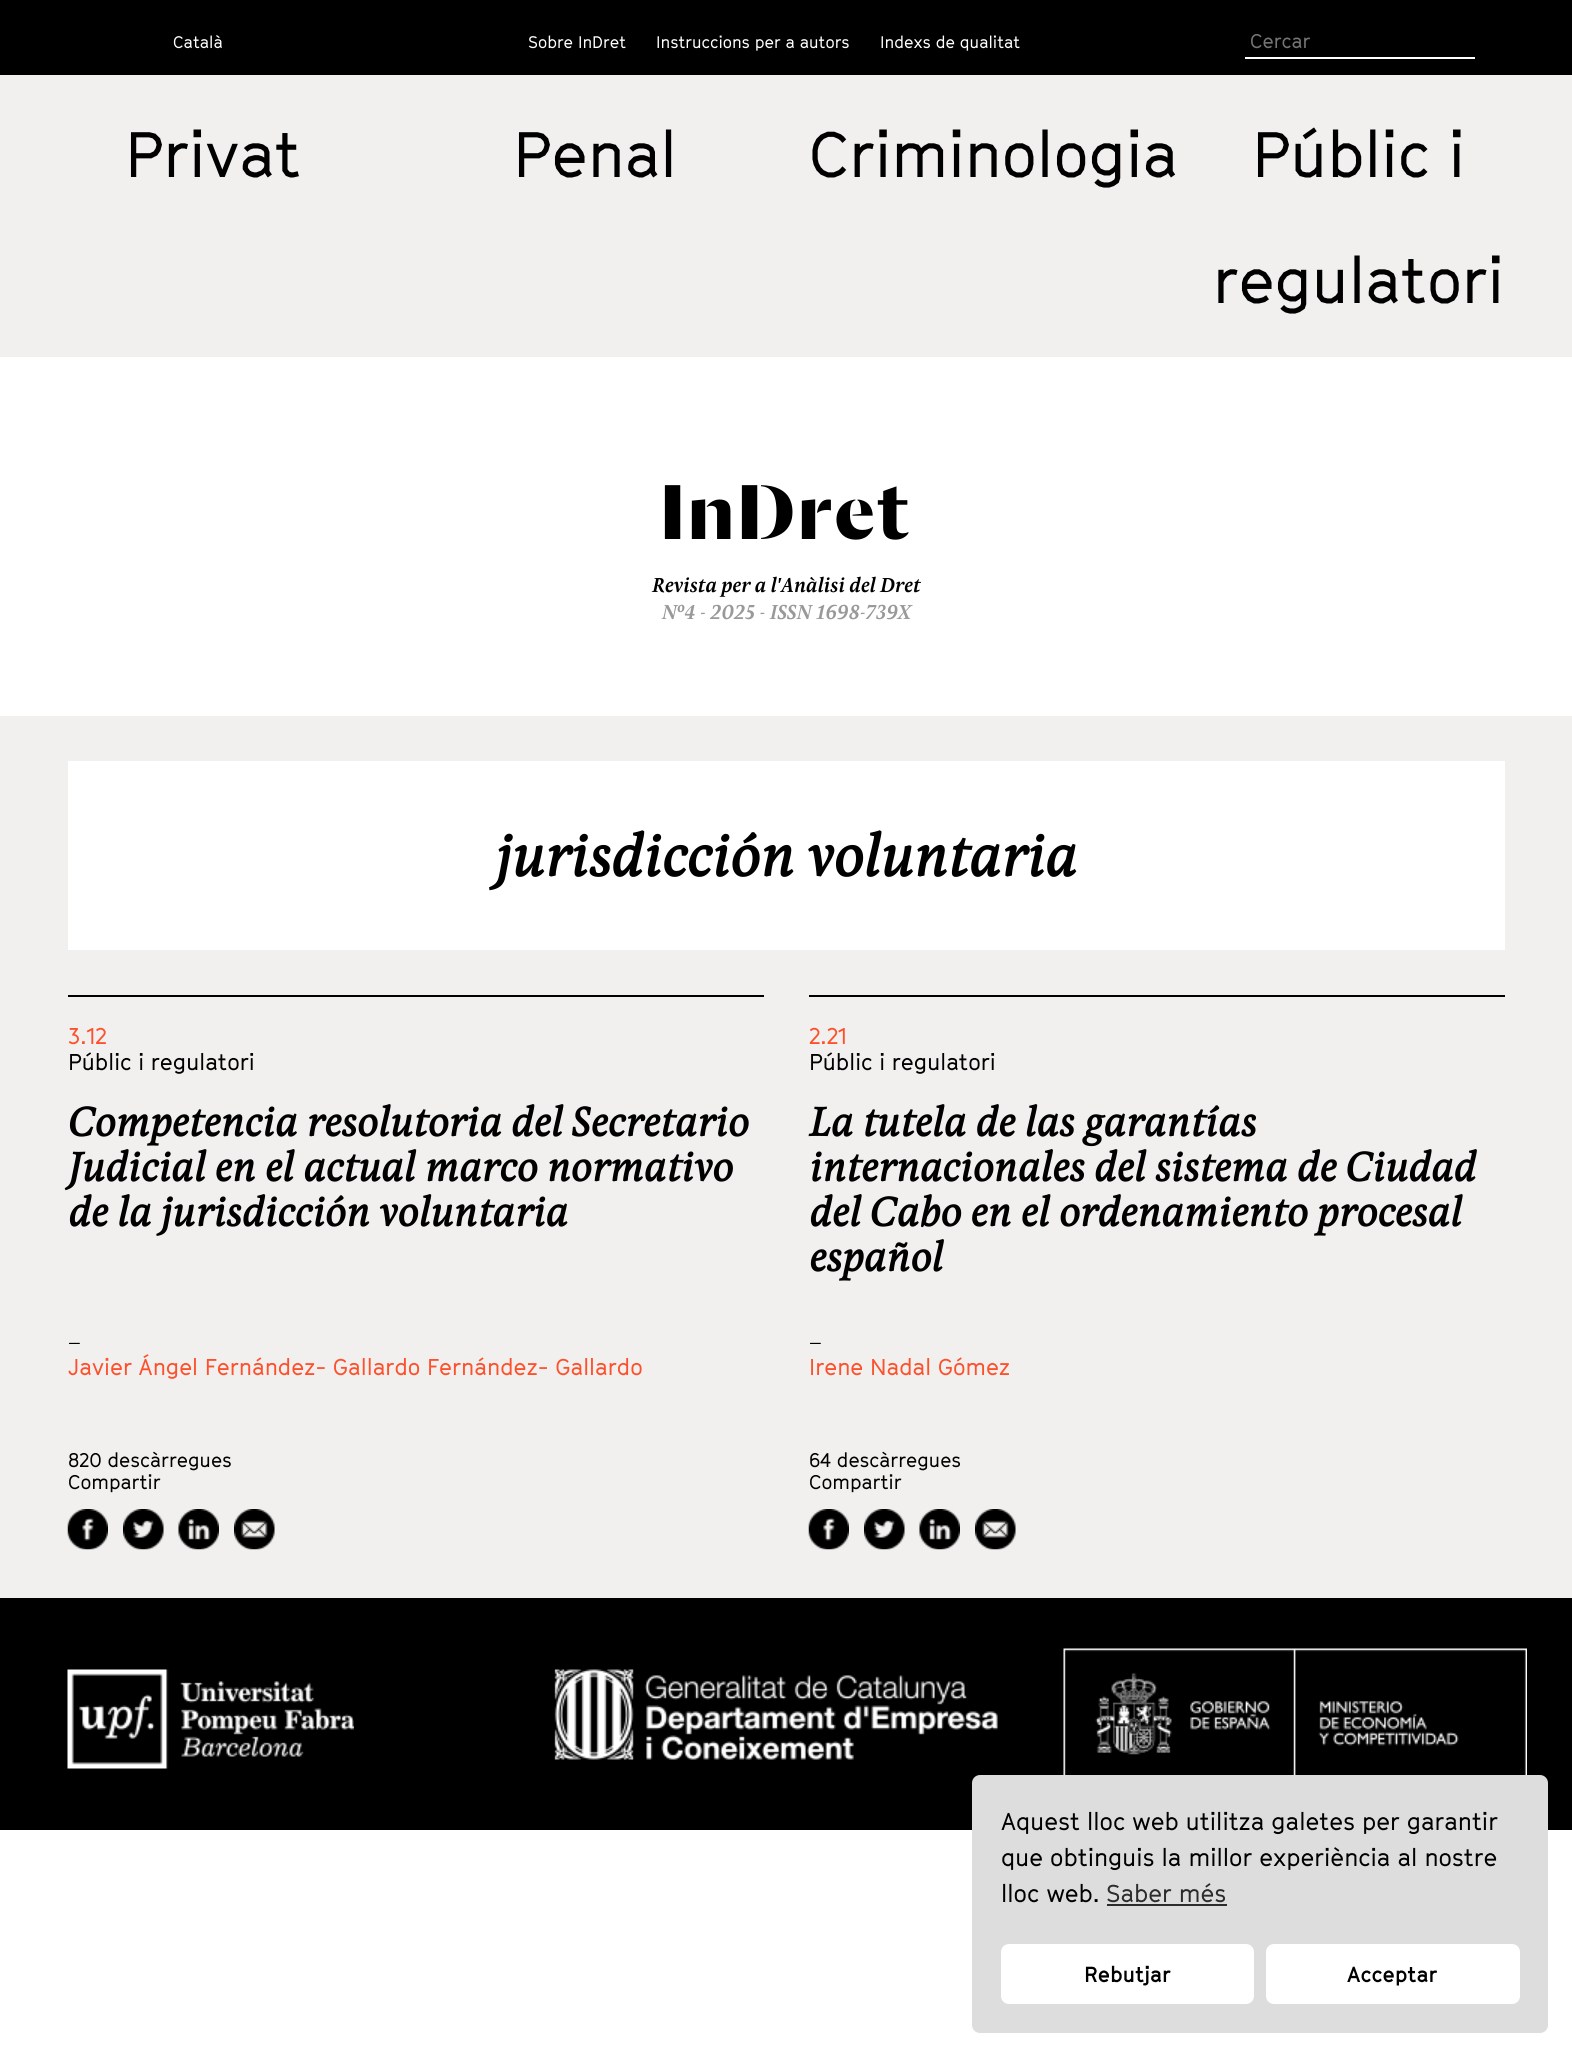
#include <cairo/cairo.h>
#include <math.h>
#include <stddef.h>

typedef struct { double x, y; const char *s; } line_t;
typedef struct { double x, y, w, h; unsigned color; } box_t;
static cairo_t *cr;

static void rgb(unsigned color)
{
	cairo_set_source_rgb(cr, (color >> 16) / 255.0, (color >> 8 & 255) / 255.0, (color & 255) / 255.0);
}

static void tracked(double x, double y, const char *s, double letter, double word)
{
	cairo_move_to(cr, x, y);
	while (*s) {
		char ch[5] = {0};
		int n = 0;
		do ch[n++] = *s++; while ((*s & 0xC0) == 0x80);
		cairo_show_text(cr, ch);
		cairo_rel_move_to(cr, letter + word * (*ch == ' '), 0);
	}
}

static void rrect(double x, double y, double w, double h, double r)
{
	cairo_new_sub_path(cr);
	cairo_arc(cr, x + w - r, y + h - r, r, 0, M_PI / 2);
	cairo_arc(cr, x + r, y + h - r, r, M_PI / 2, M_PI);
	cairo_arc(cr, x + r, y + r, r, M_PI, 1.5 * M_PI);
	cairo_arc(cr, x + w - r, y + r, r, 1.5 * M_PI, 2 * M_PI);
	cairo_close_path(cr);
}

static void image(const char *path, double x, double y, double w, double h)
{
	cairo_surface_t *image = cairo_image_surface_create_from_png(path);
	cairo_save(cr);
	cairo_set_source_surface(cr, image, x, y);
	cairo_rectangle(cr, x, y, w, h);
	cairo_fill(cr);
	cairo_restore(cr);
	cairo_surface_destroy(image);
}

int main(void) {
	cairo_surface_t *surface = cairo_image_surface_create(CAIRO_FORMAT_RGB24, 1572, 2056);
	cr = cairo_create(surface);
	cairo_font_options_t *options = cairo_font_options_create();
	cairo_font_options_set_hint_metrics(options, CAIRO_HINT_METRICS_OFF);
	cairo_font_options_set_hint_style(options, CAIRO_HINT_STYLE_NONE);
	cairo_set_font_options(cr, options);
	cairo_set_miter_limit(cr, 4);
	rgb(0xffffff);
	cairo_paint(cr);
	{
		static const box_t items[] = {
			{0, 0, 1572, 75, 0x000000},
			{1245, 57, 230, 2, 0xffffff},
			{0, 75, 1572, 282, 0xf1f0ee},
			{0, 716, 1572, 882, 0xf1f0ee},
			{68, 761, 1437, 189, 0xffffff},
			{68, 995, 696, 2, 0x000000},
		};
		for (size_t i = 0; i < sizeof items / sizeof *items; i++) {
			rgb(items[i].color);
			cairo_rectangle(cr, items[i].x, items[i].y, items[i].w, items[i].h);
			cairo_fill(cr);
		}
	}
	image("img/1.png", 67, 1509, 41, 41);
	image("img/2.png", 123, 1509, 41, 41);
	image("img/3.png", 178, 1509, 41, 41);
	image("img/4.png", 234, 1509, 41, 41);
	cairo_rectangle(cr, 809, 995, 696, 2);
	cairo_fill(cr);
	image("img/1.png", 808, 1509, 41, 41);
	image("img/2.png", 864, 1509, 41, 41);
	image("img/3.png", 919, 1509, 41, 41);
	image("img/4.png", 975, 1509, 41, 41);
	cairo_rectangle(cr, 0, 1598, 1572, 232);
	cairo_fill(cr);
	image("img/5.png", 67, 1669, 287, 100);
	image("img/6.png", 554, 1669, 444, 91);
	image("img/7.png", 1063, 1648, 464, 127);
	rgb(0xdddddd);
	rrect(972, 1775, 576, 258, 8);
	cairo_fill(cr);
	rgb(0x2c2c2c);
	cairo_rectangle(cr, 1107, 1904, 120, 2);
	cairo_fill(cr);
	rgb(0xffffff);
	rrect(1001, 1944, 253, 60, 8);
	cairo_fill(cr);
	rrect(1266, 1944, 254, 60, 8);
	cairo_fill(cr);
	cairo_select_font_face(cr, "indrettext", CAIRO_FONT_SLANT_NORMAL, CAIRO_FONT_WEIGHT_NORMAL);
	cairo_set_font_size(cr, 16.5);
	{
		static const line_t items[] = {
			{173, 48, "Català"},
			{528, 48, "Sobre InDret"},
			{656, 48, "Instruccions per a autors"},
			{880, 48, "Indexs de qualitat"},
		};
		for (size_t i = 0; i < sizeof items / sizeof *items; i++) {
			cairo_move_to(cr, items[i].x, items[i].y);
			cairo_show_text(cr, items[i].s);
		}
	}
	cairo_set_font_size(cr, 19.5);
	rgb(0x757575);
	cairo_move_to(cr, 1250, 48);
	cairo_show_text(cr, "Cercar");
	cairo_set_font_size(cr, 63);
	rgb(0x000000);
	{
		static const line_t items[] = {
			{125, 177, "Privat"},
			{513, 177, "Penal"},
			{809, 177, "Criminologia"},
			{1252, 177, "Públic i"},
			{1213, 303, "regulatori"},
		};
		for (size_t i = 0; i < sizeof items / sizeof *items; i++) {
			cairo_move_to(cr, items[i].x, items[i].y);
			cairo_show_text(cr, items[i].s);
		}
	}
	cairo_select_font_face(cr, "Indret", CAIRO_FONT_SLANT_NORMAL, CAIRO_FONT_WEIGHT_BOLD);
	cairo_set_font_size(cr, 85.5);
	tracked(660, 539, "InDret", 3, 0);
	cairo_select_font_face(cr, "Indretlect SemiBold", CAIRO_FONT_SLANT_ITALIC, CAIRO_FONT_WEIGHT_NORMAL);
	cairo_set_font_size(cr, 21);
	cairo_move_to(cr, 652, 592);
	cairo_show_text(cr, "Revista per a l'Anàlisi del Dret");
	rgb(0x999999);
	cairo_move_to(cr, 662, 619);
	cairo_show_text(cr, "Nº4 - 2025 - ISSN 1698-739X");
	cairo_select_font_face(cr, "Indretlect", CAIRO_FONT_SLANT_ITALIC, CAIRO_FONT_WEIGHT_BOLD);
	cairo_set_font_size(cr, 60);
	rgb(0x000000);
	cairo_move_to(cr, 495, 876);
	cairo_show_text(cr, "jurisdicción voluntaria");
	cairo_select_font_face(cr, "indrettext", CAIRO_FONT_SLANT_NORMAL, CAIRO_FONT_WEIGHT_NORMAL);
	cairo_set_font_size(cr, 22.5);
	rgb(0xfd502c);
	cairo_move_to(cr, 68, 1044);
	cairo_show_text(cr, "3.12");
	rgb(0x000000);
	cairo_move_to(cr, 68, 1070);
	cairo_show_text(cr, "Públic i regulatori");
	cairo_select_font_face(cr, "Indretlect", CAIRO_FONT_SLANT_ITALIC, CAIRO_FONT_WEIGHT_BOLD);
	cairo_set_font_size(cr, 42);
	{
		static const line_t items[] = {
			{68, 1136, "Competencia resolutoria del Secretario"},
			{68, 1181, "Judicial en el actual marco normativo"},
			{68, 1226, "de la jurisdicción voluntaria"},
		};
		for (size_t i = 0; i < sizeof items / sizeof *items; i++) {
			cairo_move_to(cr, items[i].x, items[i].y);
			cairo_show_text(cr, items[i].s);
		}
	}
	cairo_select_font_face(cr, "Indretlect", CAIRO_FONT_SLANT_ITALIC, CAIRO_FONT_WEIGHT_NORMAL);
	cairo_set_font_size(cr, 21);
	cairo_move_to(cr, 68, 1344);
	cairo_show_text(cr, "_");
	cairo_select_font_face(cr, "indrettext", CAIRO_FONT_SLANT_NORMAL, CAIRO_FONT_WEIGHT_NORMAL);
	cairo_set_font_size(cr, 22.5);
	rgb(0xfd502c);
	cairo_move_to(cr, 68, 1375);
	cairo_show_text(cr, "Javier Ángel Fernández- Gallardo Fernández- Gallardo");
	cairo_set_font_size(cr, 19.5);
	rgb(0x000000);
	cairo_move_to(cr, 68, 1467);
	cairo_show_text(cr, "820 descàrregues");
	cairo_move_to(cr, 68, 1489);
	cairo_show_text(cr, "Compartir");
	cairo_set_font_size(cr, 22.5);
	rgb(0xfd502c);
	cairo_move_to(cr, 809, 1044);
	cairo_show_text(cr, "2.21");
	rgb(0x000000);
	cairo_move_to(cr, 809, 1070);
	cairo_show_text(cr, "Públic i regulatori");
	cairo_select_font_face(cr, "Indretlect", CAIRO_FONT_SLANT_ITALIC, CAIRO_FONT_WEIGHT_BOLD);
	cairo_set_font_size(cr, 42);
	{
		static const line_t items[] = {
			{809, 1136, "La tutela de las garantías"},
			{809, 1181, "internacionales del sistema de Ciudad"},
			{809, 1226, "del Cabo en el ordenamiento procesal"},
			{809, 1271, "español"},
		};
		for (size_t i = 0; i < sizeof items / sizeof *items; i++) {
			cairo_move_to(cr, items[i].x, items[i].y);
			cairo_show_text(cr, items[i].s);
		}
	}
	cairo_select_font_face(cr, "Indretlect", CAIRO_FONT_SLANT_ITALIC, CAIRO_FONT_WEIGHT_NORMAL);
	cairo_set_font_size(cr, 21);
	cairo_move_to(cr, 809, 1344);
	cairo_show_text(cr, "_");
	cairo_select_font_face(cr, "indrettext", CAIRO_FONT_SLANT_NORMAL, CAIRO_FONT_WEIGHT_NORMAL);
	cairo_set_font_size(cr, 22.5);
	rgb(0xfd502c);
	cairo_move_to(cr, 809, 1375);
	cairo_show_text(cr, "Irene Nadal Gómez");
	cairo_set_font_size(cr, 19.5);
	rgb(0x000000);
	cairo_move_to(cr, 809, 1467);
	cairo_show_text(cr, "64 descàrregues");
	cairo_move_to(cr, 809, 1489);
	cairo_show_text(cr, "Compartir");
	cairo_set_font_size(cr, 24);
	{
		static const line_t items[] = {
			{1001, 1830, "Aquest lloc web utilitza galetes per garantir"},
			{1001, 1866, "que obtinguis la millor experiència al nostre"},
			{1001, 1902, "lloc web."},
		};
		for (size_t i = 0; i < sizeof items / sizeof *items; i++) {
			cairo_move_to(cr, items[i].x, items[i].y);
			cairo_show_text(cr, items[i].s);
		}
	}
	rgb(0x2c2c2c);
	cairo_move_to(cr, 1106, 1902);
	cairo_show_text(cr, "Saber més");
	cairo_select_font_face(cr, "indrettext", CAIRO_FONT_SLANT_NORMAL, CAIRO_FONT_WEIGHT_BOLD);
	cairo_set_font_size(cr, 21.5);
	rgb(0x000000);
	cairo_move_to(cr, 1084, 1982);
	cairo_show_text(cr, "Rebutjar");
	cairo_move_to(cr, 1347, 1982);
	cairo_show_text(cr, "Acceptar");
	cairo_surface_write_to_png(surface, "page.png");
	cairo_font_options_destroy(options);
	cairo_destroy(cr);
	cairo_surface_destroy(surface);
	return 0;
}
